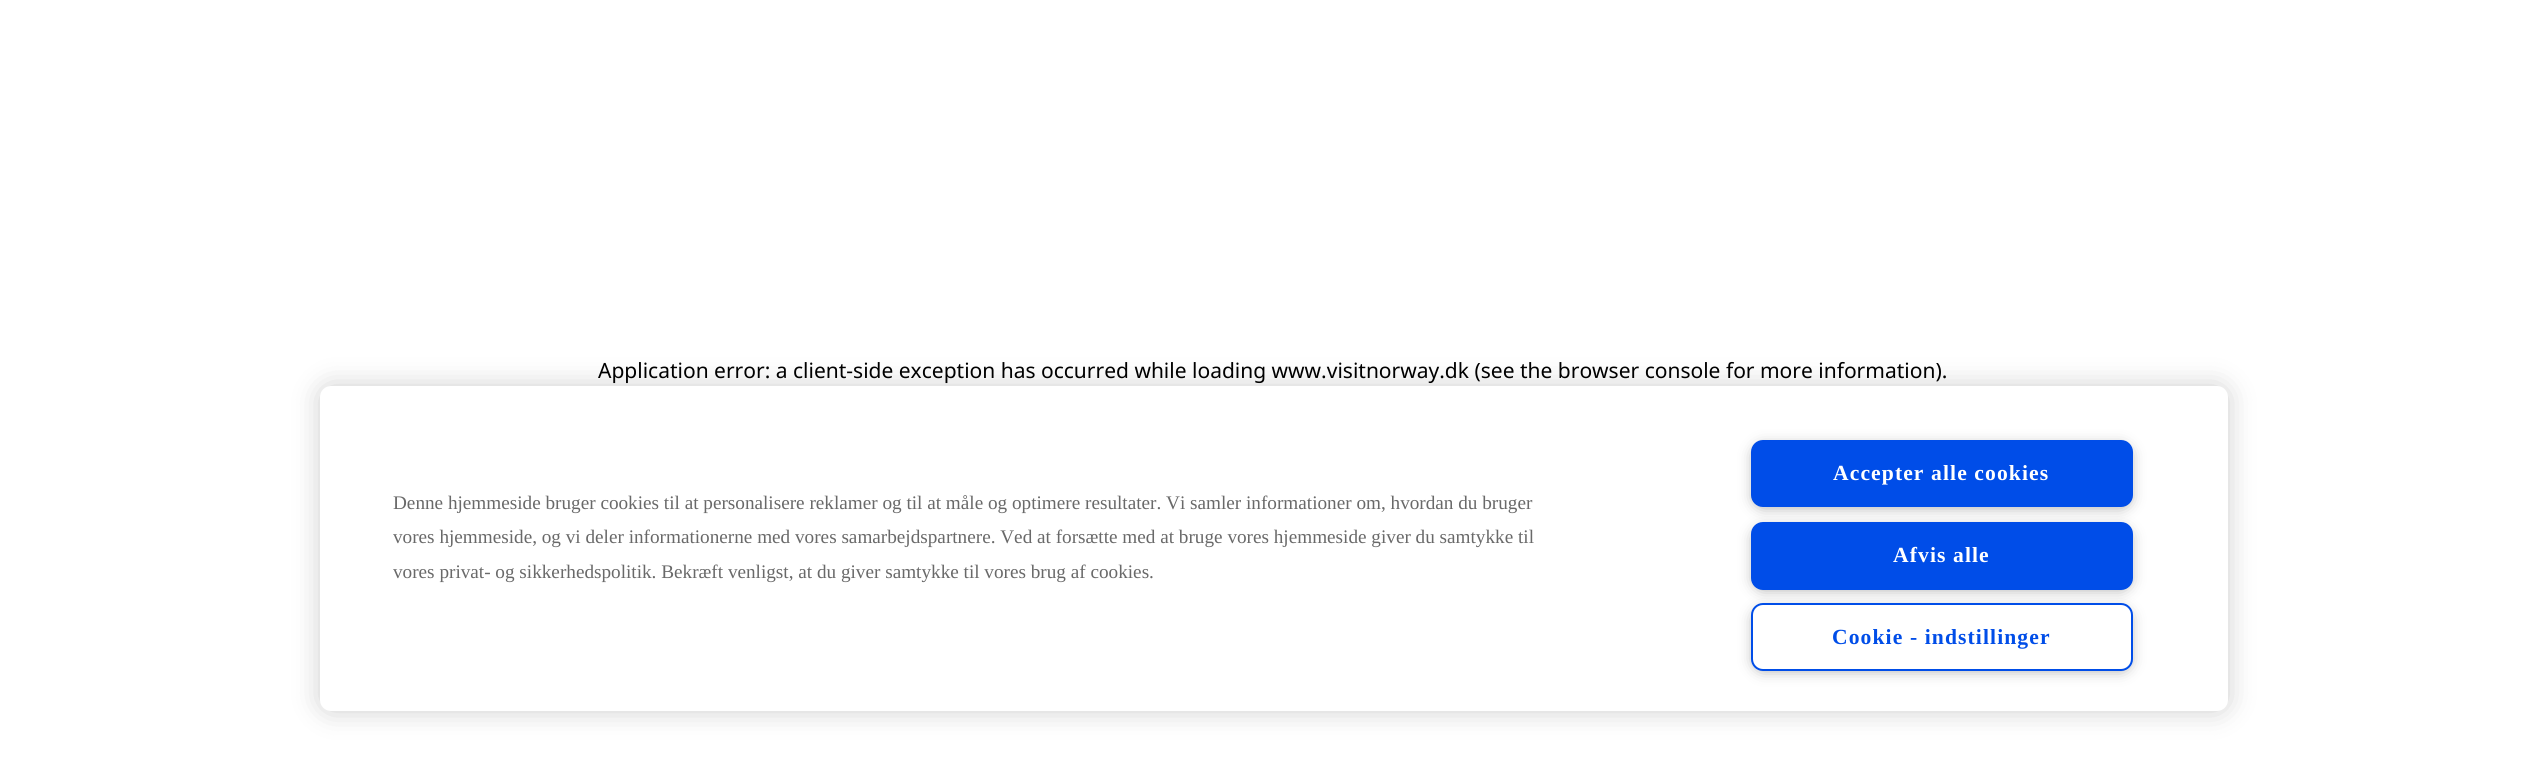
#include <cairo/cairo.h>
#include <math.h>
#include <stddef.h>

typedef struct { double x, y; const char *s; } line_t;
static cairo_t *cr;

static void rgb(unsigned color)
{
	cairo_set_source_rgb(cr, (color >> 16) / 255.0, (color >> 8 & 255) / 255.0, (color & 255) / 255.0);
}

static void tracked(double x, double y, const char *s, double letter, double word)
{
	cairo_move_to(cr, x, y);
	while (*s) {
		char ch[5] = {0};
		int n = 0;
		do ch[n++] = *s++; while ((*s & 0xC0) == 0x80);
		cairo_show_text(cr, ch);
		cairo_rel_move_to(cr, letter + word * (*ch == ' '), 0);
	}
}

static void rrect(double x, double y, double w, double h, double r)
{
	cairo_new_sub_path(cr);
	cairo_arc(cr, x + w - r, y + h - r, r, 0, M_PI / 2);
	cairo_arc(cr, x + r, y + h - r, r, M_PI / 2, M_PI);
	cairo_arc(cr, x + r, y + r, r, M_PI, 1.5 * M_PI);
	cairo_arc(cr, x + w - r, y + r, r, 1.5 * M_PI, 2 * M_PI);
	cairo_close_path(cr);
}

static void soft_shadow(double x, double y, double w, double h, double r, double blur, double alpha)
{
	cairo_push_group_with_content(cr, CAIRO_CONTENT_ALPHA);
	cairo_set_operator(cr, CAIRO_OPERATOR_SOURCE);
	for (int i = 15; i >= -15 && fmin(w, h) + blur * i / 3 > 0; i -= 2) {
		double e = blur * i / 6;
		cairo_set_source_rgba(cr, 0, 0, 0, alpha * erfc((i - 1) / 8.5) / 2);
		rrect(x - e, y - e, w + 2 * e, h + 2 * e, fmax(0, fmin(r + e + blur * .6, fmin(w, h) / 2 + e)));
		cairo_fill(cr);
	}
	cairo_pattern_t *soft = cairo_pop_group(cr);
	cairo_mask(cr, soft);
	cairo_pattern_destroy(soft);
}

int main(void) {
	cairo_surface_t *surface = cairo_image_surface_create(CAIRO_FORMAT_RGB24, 2545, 758);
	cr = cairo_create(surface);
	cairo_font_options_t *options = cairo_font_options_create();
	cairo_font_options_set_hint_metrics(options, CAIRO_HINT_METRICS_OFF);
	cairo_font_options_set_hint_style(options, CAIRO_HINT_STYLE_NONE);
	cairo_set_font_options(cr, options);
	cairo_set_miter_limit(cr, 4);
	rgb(0xffffff);
	cairo_paint(cr);
	rgb(0x000000);
	soft_shadow(320, 386, 1908, 325, 11, 13.5, 0.2);
	rgb(0xffffff);
	rrect(320, 386, 1908, 325, 11);
	cairo_fill(cr);
	rgb(0x999999);
	soft_shadow(1755, 447, 374, 59, 8, 7.5, 1);
	rgb(0x004de8);
	rrect(1752, 441, 380, 65, 11);
	cairo_fill_preserve(cr);
	cairo_stroke(cr);
	rgb(0x999999);
	soft_shadow(1755, 530, 374, 58, 8, 7.5, 1);
	rgb(0x004de8);
	rrect(1752, 523, 380, 66, 11);
	cairo_fill_preserve(cr);
	cairo_stroke(cr);
	rgb(0x999999);
	soft_shadow(1755, 611, 374, 58, 8, 7.5, 1);
	rgb(0xffffff);
	rrect(1752, 604, 380, 66, 11);
	cairo_fill_preserve(cr);
	rgb(0x004de8);
	cairo_stroke(cr);
	cairo_select_font_face(cr, "Noto Sans", CAIRO_FONT_SLANT_NORMAL, CAIRO_FONT_WEIGHT_NORMAL);
	cairo_set_font_size(cr, 21);
	rgb(0x000000);
	cairo_move_to(cr, 598, 378);
	cairo_show_text(cr, "Application error: a client-side exception has occurred while loading www.visitnorway.dk (see the browser console for more information).");
	cairo_select_font_face(cr, "Liberation Serif", CAIRO_FONT_SLANT_NORMAL, CAIRO_FONT_WEIGHT_NORMAL);
	cairo_set_font_size(cr, 19.2);
	rgb(0x696969);
	{
		static const line_t items[] = {
			{393, 509, "Denne hjemmeside bruger cookies til at personalisere reklamer og til at måle og optimere resultater. Vi samler informationer om, hvordan du bruger"},
			{393, 543, "vores hjemmeside, og vi deler informationerne med vores samarbejdspartnere. Ved at forsætte med at bruge vores hjemmeside giver du samtykke til"},
			{393, 578, "vores privat- og sikkerhedspolitik. Bekræft venligst, at du giver samtykke til vores brug af cookies."},
		};
		for (size_t i = 0; i < sizeof items / sizeof *items; i++) {
			cairo_move_to(cr, items[i].x, items[i].y);
			cairo_show_text(cr, items[i].s);
		}
	}
	cairo_select_font_face(cr, "Liberation Serif", CAIRO_FONT_SLANT_NORMAL, CAIRO_FONT_WEIGHT_BOLD);
	cairo_set_font_size(cr, 21.6);
	rgb(0xffffff);
	tracked(1833, 480, "Accepter alle cookies", 1.1, 0);
	tracked(1893, 562, "Afvis alle", 1.1, 0);
	rgb(0x004de8);
	tracked(1832, 644, "Cookie - indstillinger", 1.1, 0);
	cairo_surface_write_to_png(surface, "page.png");
	cairo_font_options_destroy(options);
	cairo_destroy(cr);
	cairo_surface_destroy(surface);
	return 0;
}
